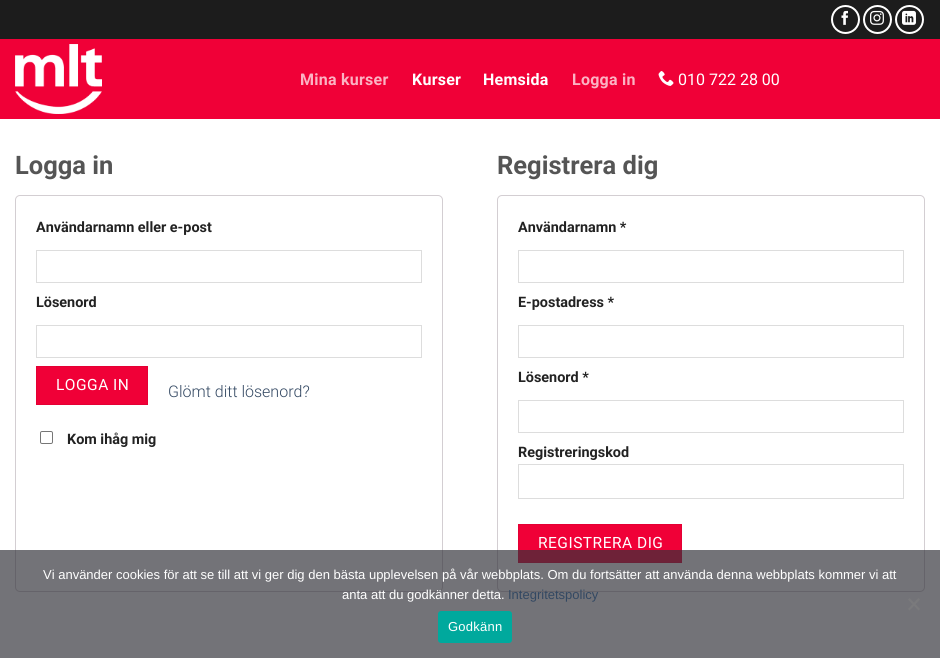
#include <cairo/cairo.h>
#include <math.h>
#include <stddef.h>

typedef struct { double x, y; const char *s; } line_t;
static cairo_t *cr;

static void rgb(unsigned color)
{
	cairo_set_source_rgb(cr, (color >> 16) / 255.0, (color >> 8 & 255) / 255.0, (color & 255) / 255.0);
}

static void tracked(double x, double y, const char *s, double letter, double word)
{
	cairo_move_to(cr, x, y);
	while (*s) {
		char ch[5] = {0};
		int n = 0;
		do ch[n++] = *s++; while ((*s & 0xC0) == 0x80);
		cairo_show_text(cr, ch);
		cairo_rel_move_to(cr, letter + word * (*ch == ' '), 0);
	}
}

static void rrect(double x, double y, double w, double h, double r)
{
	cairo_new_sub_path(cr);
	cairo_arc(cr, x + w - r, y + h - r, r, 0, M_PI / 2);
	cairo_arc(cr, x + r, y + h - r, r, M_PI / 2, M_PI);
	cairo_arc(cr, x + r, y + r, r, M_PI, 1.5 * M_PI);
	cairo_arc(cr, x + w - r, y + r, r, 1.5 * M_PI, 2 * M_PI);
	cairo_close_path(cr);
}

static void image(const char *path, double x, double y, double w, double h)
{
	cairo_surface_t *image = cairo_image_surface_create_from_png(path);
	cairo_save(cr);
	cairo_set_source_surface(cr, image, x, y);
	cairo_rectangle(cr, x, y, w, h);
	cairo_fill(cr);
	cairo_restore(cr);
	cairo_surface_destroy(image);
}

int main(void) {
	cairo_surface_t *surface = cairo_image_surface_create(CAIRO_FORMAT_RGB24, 940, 658);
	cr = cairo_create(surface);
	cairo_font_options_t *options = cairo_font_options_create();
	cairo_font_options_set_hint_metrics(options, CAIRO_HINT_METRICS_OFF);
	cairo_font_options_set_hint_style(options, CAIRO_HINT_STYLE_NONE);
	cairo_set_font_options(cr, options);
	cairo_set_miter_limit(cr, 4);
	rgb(0xffffff);
	cairo_paint(cr);
	rgb(0x1c1c1c);
	cairo_rectangle(cr, 0, 0, 940, 39);
	cairo_fill(cr);
	cairo_arc(cr, 845.5, 19.5, 13.5, 0, 2 * M_PI);
	rgb(0xffffff);
	cairo_stroke(cr);
	image("img/1.png", 841, 10, 7, 15);
	cairo_arc(cr, 877.5, 19.5, 13.5, 0, 2 * M_PI);
	cairo_stroke(cr);
	image("img/2.png", 870, 10, 14, 15);
	cairo_arc(cr, 909.5, 19.5, 13.5, 0, 2 * M_PI);
	cairo_stroke(cr);
	image("img/3.png", 902, 10, 14, 15);
	rgb(0xf00037);
	cairo_rectangle(cr, 0, 39, 940, 80);
	cairo_fill(cr);
	image("img/4.png", 15, 44, 87, 70);
	image("img/5.png", 658, 71, 16, 15);
	rrect(15.5, 195.5, 427, 396, 4.5);
	rgb(0xd3ced2);
	cairo_set_line_width(cr, 1);
	cairo_stroke(cr);
	cairo_rectangle(cr, 36.5, 250.5, 385, 32);
	rgb(0xdddddd);
	cairo_stroke(cr);
	cairo_rectangle(cr, 36.5, 325.5, 385, 32);
	cairo_stroke(cr);
	rgb(0xf00037);
	cairo_rectangle(cr, 36.5, 366.5, 111, 38);
	cairo_fill_preserve(cr);
	rgb(0xe40034);
	cairo_stroke(cr);
	rrect(40.5, 431.5, 12, 12, 1.5);
	rgb(0x767676);
	cairo_stroke(cr);
	rrect(497.5, 195.5, 427, 396, 4.5);
	rgb(0xd3ced2);
	cairo_stroke(cr);
	cairo_rectangle(cr, 518.5, 250.5, 385, 32);
	rgb(0xdddddd);
	cairo_stroke(cr);
	cairo_rectangle(cr, 518.5, 325.5, 385, 32);
	cairo_stroke(cr);
	cairo_rectangle(cr, 518.5, 400.5, 385, 32);
	cairo_stroke(cr);
	cairo_rectangle(cr, 518.5, 464.5, 385, 34);
	cairo_stroke(cr);
	rgb(0xf00037);
	cairo_rectangle(cr, 518.5, 524.5, 163, 38);
	cairo_fill_preserve(cr);
	rgb(0xe40034);
	cairo_stroke(cr);
	cairo_set_source_rgba(cr, 0.196, 0.196, 0.227, 0.68);
	cairo_rectangle(cr, 0, 550, 940, 108);
	cairo_fill(cr);
	rgb(0x7a7a7c);
	cairo_new_path(cr);
	cairo_move_to(cr, 918.5, 598);
	cairo_line_to(cr, 920, 599.5);
	cairo_line_to(cr, 909.5, 610.5);
	cairo_line_to(cr, 908, 609);
	cairo_close_path(cr);
	cairo_fill(cr);
	cairo_new_path(cr);
	cairo_move_to(cr, 908, 599.5);
	cairo_line_to(cr, 909.5, 598);
	cairo_line_to(cr, 920, 609);
	cairo_line_to(cr, 918.5, 610.5);
	cairo_close_path(cr);
	cairo_fill(cr);
	rgb(0x00a99d);
	rrect(438, 611, 74, 32, 3);
	cairo_fill(cr);
	cairo_select_font_face(cr, "Roboto", CAIRO_FONT_SLANT_NORMAL, CAIRO_FONT_WEIGHT_BOLD);
	cairo_set_font_size(cr, 16);
	rgb(0xfbb3c3);
	tracked(300, 85, "Mina kurser", 0.25, 0);
	rgb(0xffffff);
	tracked(412, 85, "Kurser", 0.25, 0);
	tracked(483, 85, "Hemsida", 0.25, 0);
	rgb(0xfbb3c3);
	tracked(572, 85, "Logga in", 0.25, 0);
	cairo_select_font_face(cr, "Roboto", CAIRO_FONT_SLANT_NORMAL, CAIRO_FONT_WEIGHT_NORMAL);
	rgb(0xffffff);
	cairo_move_to(cr, 678, 85);
	cairo_show_text(cr, "010 722 28 00");
	cairo_select_font_face(cr, "Roboto", CAIRO_FONT_SLANT_NORMAL, CAIRO_FONT_WEIGHT_BOLD);
	cairo_set_font_size(cr, 25.5);
	rgb(0x555555);
	cairo_move_to(cr, 15, 174);
	cairo_show_text(cr, "Logga in");
	cairo_set_font_size(cr, 14.4);
	rgb(0x222222);
	cairo_move_to(cr, 36, 232);
	cairo_show_text(cr, "Användarnamn eller e-post");
	cairo_move_to(cr, 36, 307);
	cairo_show_text(cr, "Lösenord");
	cairo_select_font_face(cr, "Roboto", CAIRO_FONT_SLANT_NORMAL, CAIRO_FONT_WEIGHT_NORMAL);
	cairo_set_font_size(cr, 15.5);
	rgb(0xffffff);
	tracked(56, 390, "LOGGA IN", 0.5, 0);
	cairo_select_font_face(cr, "Roboto Light", CAIRO_FONT_SLANT_NORMAL, CAIRO_FONT_WEIGHT_NORMAL);
	cairo_set_font_size(cr, 16);
	rgb(0x334862);
	cairo_move_to(cr, 168, 397);
	cairo_show_text(cr, "Glömt ditt lösenord?");
	cairo_select_font_face(cr, "Roboto", CAIRO_FONT_SLANT_NORMAL, CAIRO_FONT_WEIGHT_BOLD);
	cairo_set_font_size(cr, 14.4);
	rgb(0x222222);
	cairo_move_to(cr, 67, 444);
	cairo_show_text(cr, "Kom ihåg mig");
	cairo_set_font_size(cr, 25.5);
	rgb(0x555555);
	cairo_move_to(cr, 497, 174);
	cairo_show_text(cr, "Registrera dig");
	cairo_set_font_size(cr, 14.4);
	rgb(0x222222);
	{
		static const line_t items[] = {
			{518, 232, "Användarnamn *"},
			{518, 307, "E-postadress *"},
			{518, 382, "Lösenord *"},
			{518, 457, "Registreringskod"},
		};
		for (size_t i = 0; i < sizeof items / sizeof *items; i++) {
			cairo_move_to(cr, items[i].x, items[i].y);
			cairo_show_text(cr, items[i].s);
		}
	}
	cairo_select_font_face(cr, "Roboto", CAIRO_FONT_SLANT_NORMAL, CAIRO_FONT_WEIGHT_NORMAL);
	cairo_set_font_size(cr, 15.5);
	rgb(0xffffff);
	tracked(538, 548, "REGISTRERA DIG", 0.5, 0);
	cairo_select_font_face(cr, "Liberation Sans", CAIRO_FONT_SLANT_NORMAL, CAIRO_FONT_WEIGHT_NORMAL);
	cairo_set_font_size(cr, 13);
	cairo_move_to(cr, 43, 579);
	cairo_show_text(cr, "Vi använder cookies för att se till att vi ger dig den bästa upplevelsen på vår webbplats. Om du fortsätter att använda denna webbplats kommer vi att");
	cairo_move_to(cr, 342, 599);
	cairo_show_text(cr, "anta att du godkänner detta.");
	rgb(0x334862);
	cairo_move_to(cr, 508, 599);
	cairo_show_text(cr, "Integritetspolicy");
	rgb(0xffffff);
	tracked(448, 631, "Godkänn", 0.25, 0);
	cairo_surface_write_to_png(surface, "page.png");
	cairo_font_options_destroy(options);
	cairo_destroy(cr);
	cairo_surface_destroy(surface);
	return 0;
}
